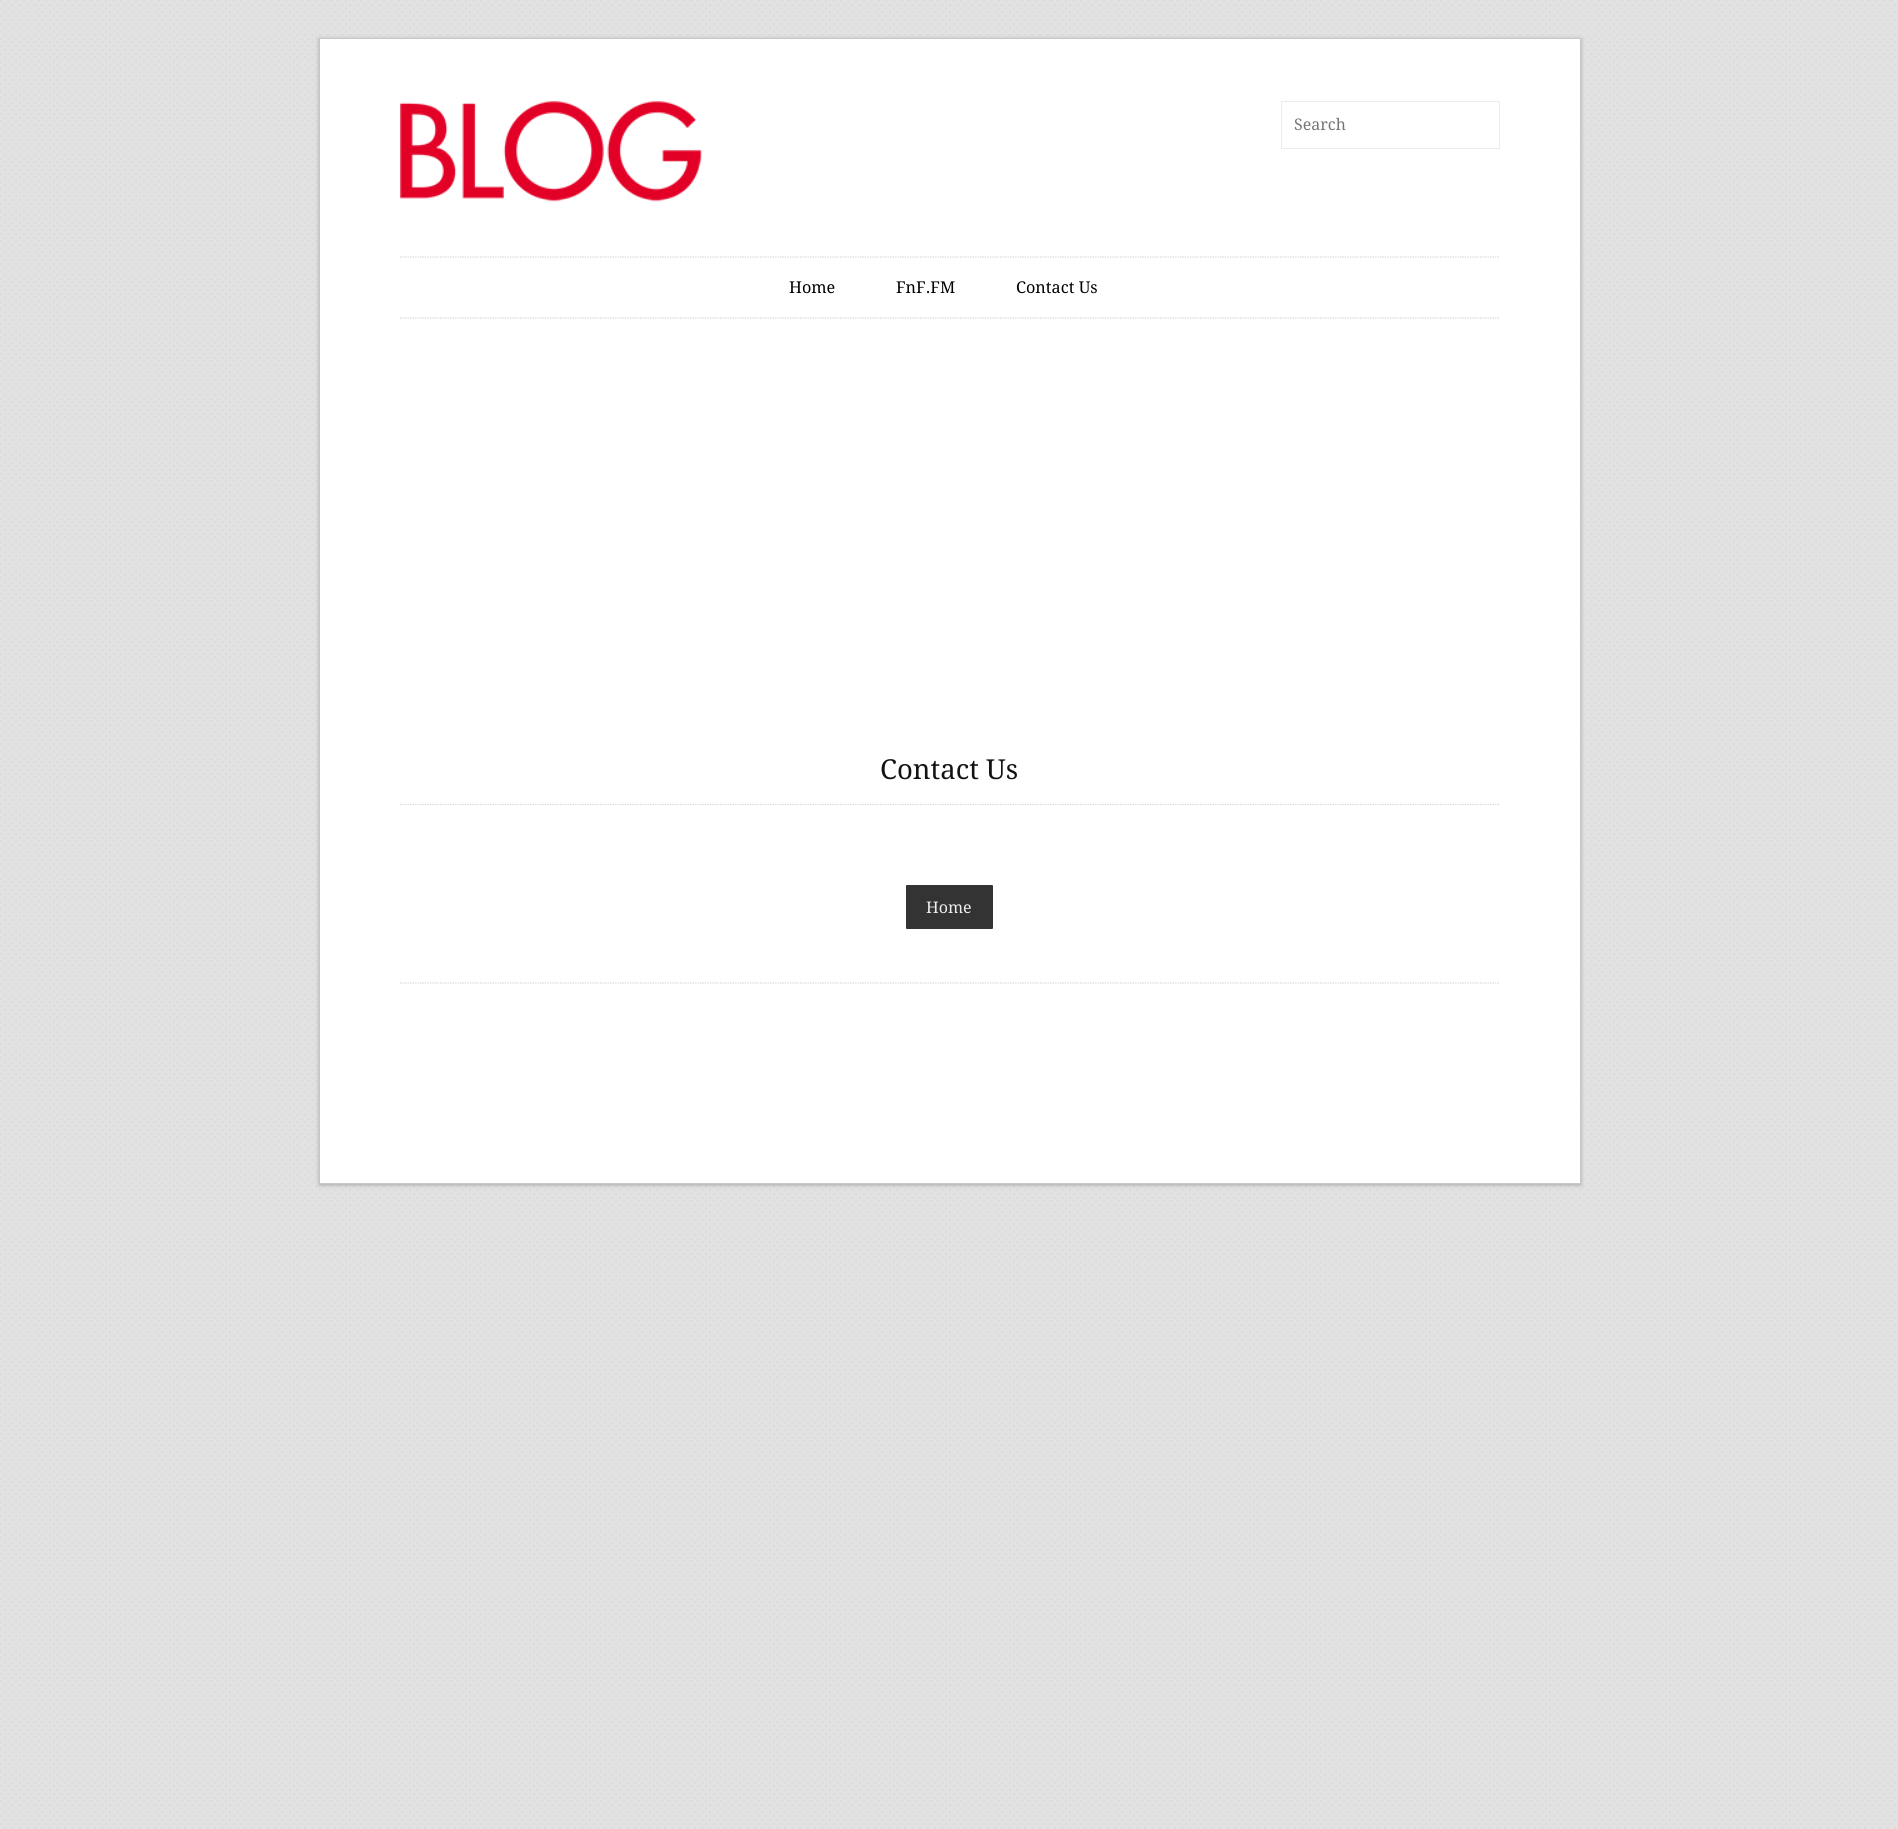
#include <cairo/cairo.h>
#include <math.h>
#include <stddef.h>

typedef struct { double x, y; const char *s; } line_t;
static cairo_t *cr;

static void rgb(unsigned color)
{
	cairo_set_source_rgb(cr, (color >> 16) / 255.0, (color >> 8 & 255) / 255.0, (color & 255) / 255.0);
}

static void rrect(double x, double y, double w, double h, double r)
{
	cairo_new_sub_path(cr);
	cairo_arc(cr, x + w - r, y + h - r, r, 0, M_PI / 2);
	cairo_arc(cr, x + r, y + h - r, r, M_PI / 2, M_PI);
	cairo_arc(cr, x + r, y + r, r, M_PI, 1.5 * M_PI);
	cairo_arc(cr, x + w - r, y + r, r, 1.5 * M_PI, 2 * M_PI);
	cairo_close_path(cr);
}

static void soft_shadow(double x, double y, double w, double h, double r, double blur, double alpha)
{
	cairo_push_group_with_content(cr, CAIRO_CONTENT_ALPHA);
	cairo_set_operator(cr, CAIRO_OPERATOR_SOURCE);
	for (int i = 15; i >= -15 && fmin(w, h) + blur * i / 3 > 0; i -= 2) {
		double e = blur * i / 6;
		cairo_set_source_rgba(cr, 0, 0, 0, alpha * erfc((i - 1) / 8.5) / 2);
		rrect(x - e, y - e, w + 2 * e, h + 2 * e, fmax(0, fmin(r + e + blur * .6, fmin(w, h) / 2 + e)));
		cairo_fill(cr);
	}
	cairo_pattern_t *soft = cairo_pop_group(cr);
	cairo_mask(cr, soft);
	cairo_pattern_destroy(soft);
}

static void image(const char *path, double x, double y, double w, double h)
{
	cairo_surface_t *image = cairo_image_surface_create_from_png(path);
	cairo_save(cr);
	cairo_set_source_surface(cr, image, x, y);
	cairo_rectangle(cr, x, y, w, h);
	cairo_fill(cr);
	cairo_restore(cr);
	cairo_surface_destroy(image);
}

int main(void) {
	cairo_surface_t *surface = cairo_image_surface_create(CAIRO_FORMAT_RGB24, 1898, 1829);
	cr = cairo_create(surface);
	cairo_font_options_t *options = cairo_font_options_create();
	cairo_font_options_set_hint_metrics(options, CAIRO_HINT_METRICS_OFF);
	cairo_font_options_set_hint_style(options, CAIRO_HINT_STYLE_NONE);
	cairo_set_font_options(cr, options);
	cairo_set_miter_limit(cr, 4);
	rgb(0xffffff);
	cairo_paint(cr);
	image("img/1.png", 0, 0, 1898, 1829);
	rgb(0x646464);
	soft_shadow(319, 39, 1262, 1146, 0, 2, 0.45);
	rgb(0xffffff);
	cairo_rectangle(cr, 319.5, 38.5, 1261, 1145);
	cairo_fill_preserve(cr);
	rgb(0xc6c6c6);
	cairo_set_line_width(cr, 1);
	cairo_stroke(cr);
	image("img/2.png", 400, 101, 302, 101);
	cairo_rectangle(cr, 1281.5, 101.5, 218, 47);
	rgb(0xebebeb);
	cairo_stroke(cr);
	cairo_new_path(cr);
	cairo_move_to(cr, 400, 257);
	cairo_line_to(cr, 1500, 257);
	rgb(0xd3d3d3);
	cairo_set_line_width(cr, 1.2);
	cairo_set_dash(cr, (double[]){1.25, 1.25}, 2, 0);
	cairo_stroke(cr);
	cairo_new_path(cr);
	cairo_move_to(cr, 400, 318);
	cairo_line_to(cr, 1500, 318);
	cairo_stroke(cr);
	cairo_new_path(cr);
	cairo_move_to(cr, 400, 804.5);
	cairo_line_to(cr, 1500, 804.5);
	cairo_stroke(cr);
	rgb(0x333333);
	rrect(906, 885, 87, 44, 1);
	cairo_fill(cr);
	cairo_new_path(cr);
	cairo_move_to(cr, 400, 983);
	cairo_line_to(cr, 1500, 983);
	rgb(0xd3d3d3);
	cairo_stroke(cr);
	cairo_select_font_face(cr, "Droid Serif", CAIRO_FONT_SLANT_NORMAL, CAIRO_FONT_WEIGHT_NORMAL);
	cairo_set_font_size(cr, 16);
	rgb(0x757575);
	cairo_move_to(cr, 1294, 130);
	cairo_show_text(cr, "Search");
	cairo_set_font_size(cr, 16.25);
	rgb(0x000000);
	{
		static const line_t items[] = {
			{789, 293, "Home"},
			{896, 293, "FnF.FM"},
			{1016, 293, "Contact Us"},
		};
		for (size_t i = 0; i < sizeof items / sizeof *items; i++) {
			cairo_move_to(cr, items[i].x, items[i].y);
			cairo_show_text(cr, items[i].s);
		}
	}
	cairo_set_font_size(cr, 27.5);
	rgb(0x131313);
	cairo_move_to(cr, 880, 779);
	cairo_show_text(cr, "Contact Us");
	cairo_set_font_size(cr, 16);
	rgb(0xeeeeee);
	cairo_move_to(cr, 926, 913);
	cairo_show_text(cr, "Home");
	cairo_surface_write_to_png(surface, "page.png");
	cairo_font_options_destroy(options);
	cairo_destroy(cr);
	cairo_surface_destroy(surface);
	return 0;
}
